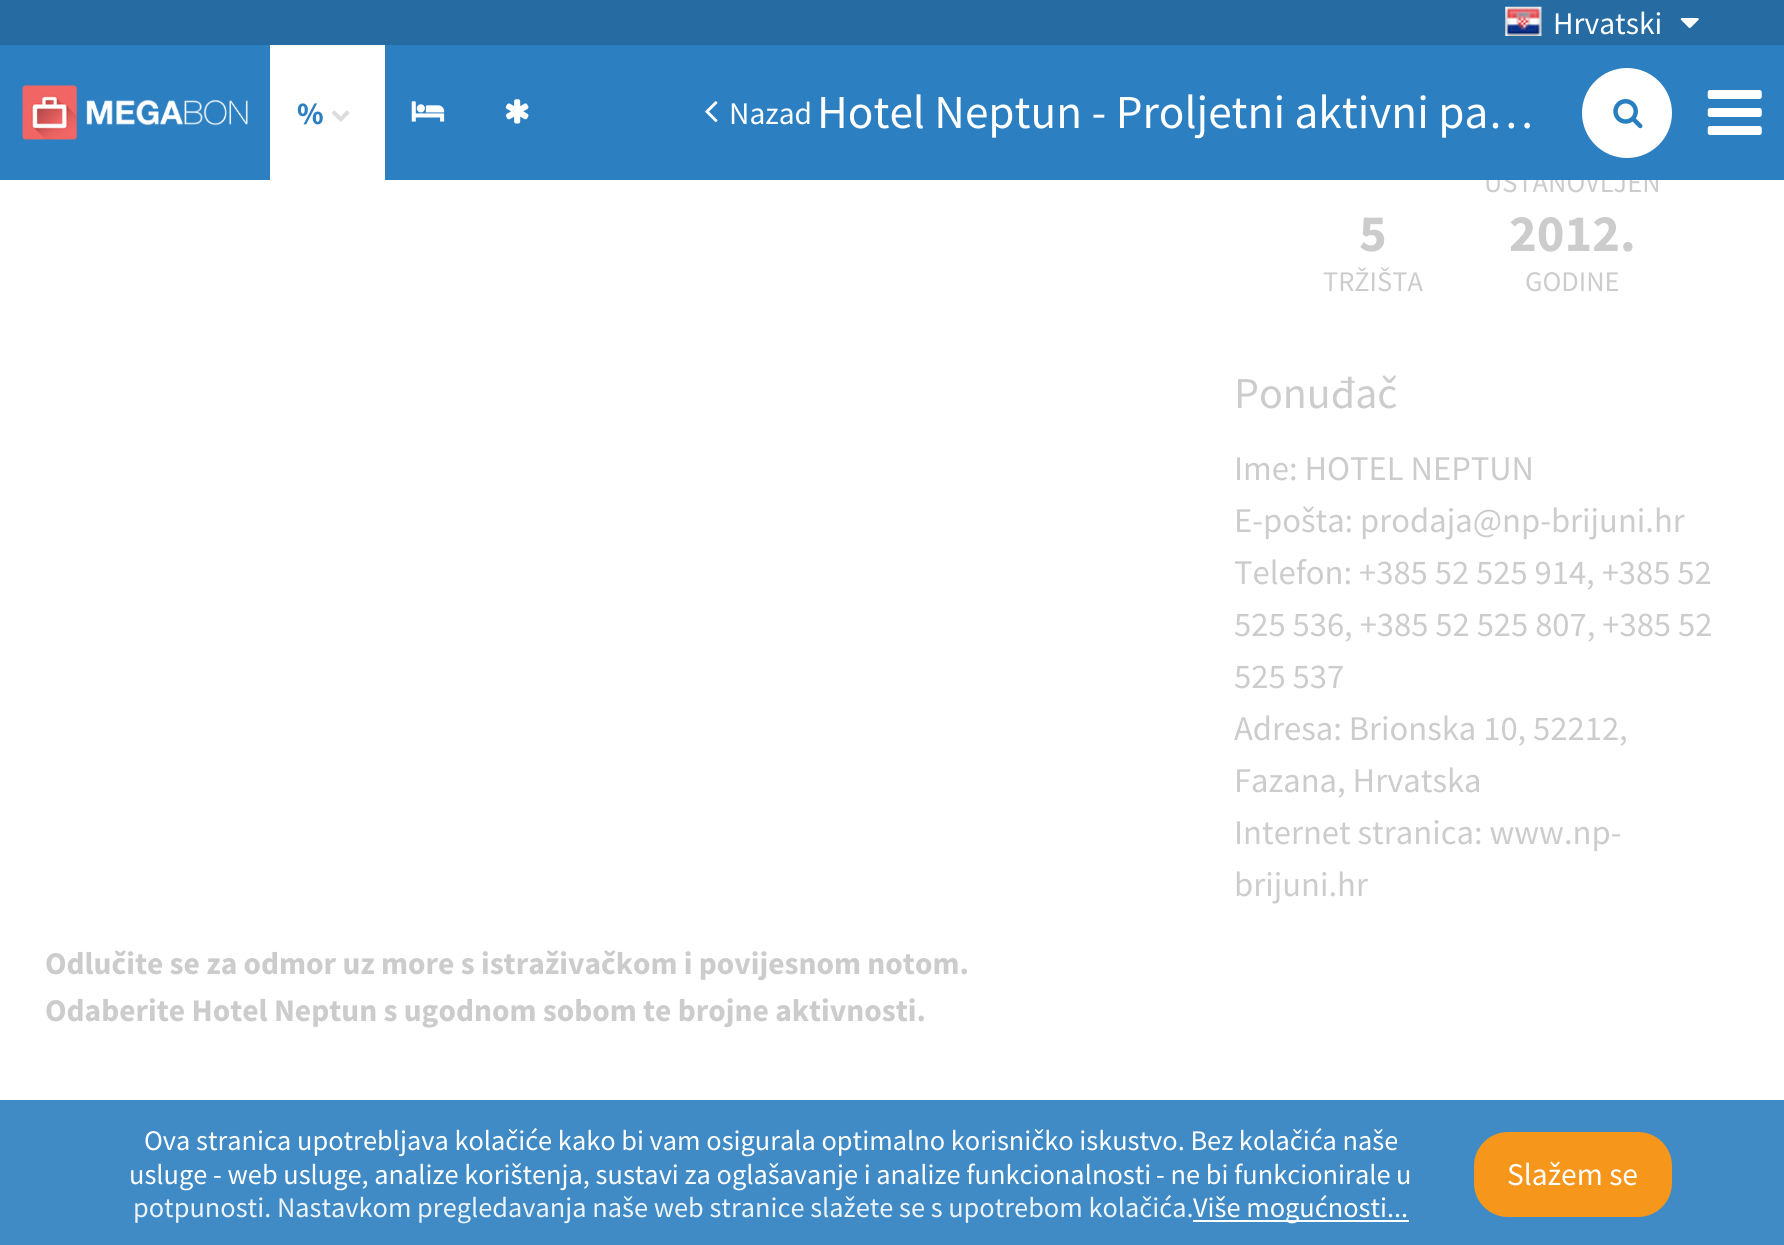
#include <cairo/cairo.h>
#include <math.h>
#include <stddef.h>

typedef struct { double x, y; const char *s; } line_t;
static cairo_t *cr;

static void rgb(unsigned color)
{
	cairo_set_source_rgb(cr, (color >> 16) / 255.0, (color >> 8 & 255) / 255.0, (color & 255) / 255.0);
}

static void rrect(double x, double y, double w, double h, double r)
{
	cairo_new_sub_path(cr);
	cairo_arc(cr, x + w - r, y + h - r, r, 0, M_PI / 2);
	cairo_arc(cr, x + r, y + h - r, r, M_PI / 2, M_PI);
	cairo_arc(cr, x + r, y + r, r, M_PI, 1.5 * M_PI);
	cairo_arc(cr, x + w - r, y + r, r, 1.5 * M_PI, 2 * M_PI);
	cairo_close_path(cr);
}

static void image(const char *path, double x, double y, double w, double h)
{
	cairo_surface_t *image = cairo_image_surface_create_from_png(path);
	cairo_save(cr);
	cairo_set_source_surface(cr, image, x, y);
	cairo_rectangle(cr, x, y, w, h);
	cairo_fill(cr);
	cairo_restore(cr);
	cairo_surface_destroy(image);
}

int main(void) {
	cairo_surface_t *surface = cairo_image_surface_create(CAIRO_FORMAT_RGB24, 1784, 1245);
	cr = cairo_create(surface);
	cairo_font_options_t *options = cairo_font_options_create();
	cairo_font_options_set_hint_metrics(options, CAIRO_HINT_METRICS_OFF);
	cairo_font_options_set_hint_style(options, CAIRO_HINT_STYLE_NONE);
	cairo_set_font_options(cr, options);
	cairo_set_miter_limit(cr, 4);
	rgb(0xffffff);
	cairo_paint(cr);
	rgb(0x266ba1);
	cairo_rectangle(cr, 0, 0, 1784, 45);
	cairo_fill(cr);
	image("img/1.png", 1505, 6, 37, 30);
	image("img/2.png", 1680, 18, 19, 11);
	cairo_set_source_rgba(cr, 0.173, 0.498, 0.753, 0.9);
	cairo_rectangle(cr, 0, 1100, 1784, 145);
	cairo_fill(cr);
	rgb(0xffffff);
	cairo_rectangle(cr, 1193, 1220, 216, 2);
	cairo_fill(cr);
	rgb(0xf6961a);
	rrect(1474, 1132, 198, 85, 34);
	cairo_fill(cr);
	cairo_select_font_face(cr, "Source Sans Pro", CAIRO_FONT_SLANT_NORMAL, CAIRO_FONT_WEIGHT_NORMAL);
	cairo_set_font_size(cr, 31.5);
	rgb(0xffffff);
	cairo_move_to(cr, 1553, 34);
	cairo_show_text(cr, "Hrvatski");
	cairo_select_font_face(cr, "Source Sans Pro", CAIRO_FONT_SLANT_NORMAL, CAIRO_FONT_WEIGHT_BOLD);
	cairo_set_font_size(cr, 52.5);
	rgb(0xcccccc);
	cairo_move_to(cr, 1359, 251);
	cairo_show_text(cr, "5");
	cairo_select_font_face(cr, "Source Sans Pro", CAIRO_FONT_SLANT_NORMAL, CAIRO_FONT_WEIGHT_NORMAL);
	cairo_set_font_size(cr, 28.35);
	cairo_move_to(cr, 1323, 291);
	cairo_show_text(cr, "TRŽIŠTA");
	cairo_move_to(cr, 1484, 192);
	cairo_show_text(cr, "USTANOVLJEN");
	rgb(0x2c7fc1);
	cairo_rectangle(cr, 0, 45, 1784, 135);
	cairo_fill(cr);
	image("img/3.png", 22, 85, 226, 55);
	image("img/9.png", 1707, 90, 55, 45);
	rgb(0xffffff);
	cairo_arc(cr, 1627, 113, 45, 0, 2 * M_PI);
	cairo_fill(cr);
	image("img/8.png", 1613, 99, 30, 30);
	image("img/7.png", 705, 101, 13, 22);
	cairo_set_font_size(cr, 31.5);
	cairo_move_to(cr, 729, 124);
	cairo_show_text(cr, "Nazad");
	cairo_set_font_size(cr, 47.25);
	cairo_move_to(cr, 817, 128);
	cairo_show_text(cr, "Hotel Neptun - Proljetni aktivni pa…");
	image("img/6.png", 505, 99, 24, 25);
	image("img/5.png", 411, 101, 34, 21);
	cairo_rectangle(cr, 270, 45, 115, 135);
	cairo_fill(cr);
	image("img/4.png", 332, 110, 18, 12);
	cairo_select_font_face(cr, "Source Sans Pro", CAIRO_FONT_SLANT_NORMAL, CAIRO_FONT_WEIGHT_BOLD);
	cairo_set_font_size(cr, 31);
	rgb(0x2c7fc1);
	cairo_move_to(cr, 297, 124);
	cairo_show_text(cr, "%");
	cairo_set_font_size(cr, 52.5);
	rgb(0xcccccc);
	cairo_move_to(cr, 1509, 251);
	cairo_show_text(cr, "2012.");
	cairo_select_font_face(cr, "Source Sans Pro", CAIRO_FONT_SLANT_NORMAL, CAIRO_FONT_WEIGHT_NORMAL);
	cairo_set_font_size(cr, 28.35);
	cairo_move_to(cr, 1525, 291);
	cairo_show_text(cr, "GODINE");
	cairo_set_font_size(cr, 44);
	cairo_move_to(cr, 1234, 408);
	cairo_show_text(cr, "Ponuđač");
	cairo_set_font_size(cr, 34.6);
	{
		static const line_t items[] = {
			{1234, 480, "Ime: HOTEL NEPTUN"},
			{1234, 532, "E-pošta: prodaja@np-brijuni.hr"},
			{1234, 584, "Telefon: +385 52 525 914, +385 52"},
			{1234, 636, "525 536, +385 52 525 807, +385 52"},
			{1234, 688, "525 537"},
			{1234, 740, "Adresa: Brionska 10, 52212,"},
			{1234, 792, "Fazana, Hrvatska"},
			{1234, 844, "Internet stranica: www.np-"},
			{1234, 896, "brijuni.hr"},
		};
		for (size_t i = 0; i < sizeof items / sizeof *items; i++) {
			cairo_move_to(cr, items[i].x, items[i].y);
			cairo_show_text(cr, items[i].s);
		}
	}
	cairo_select_font_face(cr, "Source Sans Pro", CAIRO_FONT_SLANT_NORMAL, CAIRO_FONT_WEIGHT_BOLD);
	cairo_set_font_size(cr, 31.5);
	cairo_move_to(cr, 45, 974);
	cairo_show_text(cr, "Odlučite se za odmor uz more s istraživačkom i povijesnom notom.");
	cairo_move_to(cr, 45, 1021);
	cairo_show_text(cr, "Odaberite Hotel Neptun s ugodnom sobom te brojne aktivnosti.");
	cairo_select_font_face(cr, "Source Sans Pro", CAIRO_FONT_SLANT_NORMAL, CAIRO_FONT_WEIGHT_NORMAL);
	cairo_set_font_size(cr, 28.35);
	rgb(0xffffff);
	{
		static const line_t items[] = {
			{144, 1150, "Ova stranica upotrebljava kolačiće kako bi vam osigurala optimalno korisničko iskustvo. Bez kolačića naše"},
			{129, 1184, "usluge - web usluge, analize korištenja, sustavi za oglašavanje i analize funkcionalnosti"},
			{1156, 1184, "- ne bi funkcionirale u"},
		};
		for (size_t i = 0; i < sizeof items / sizeof *items; i++) {
			cairo_move_to(cr, items[i].x, items[i].y);
			cairo_show_text(cr, items[i].s);
		}
	}
	rgb(0xecf3f9);
	cairo_move_to(cr, 133, 1217);
	cairo_show_text(cr, "potpunosti. Nastavkom pregledavanja naše web stranice slažete se s upotrebom kolačića.");
	rgb(0xffffff);
	cairo_move_to(cr, 1193, 1217);
	cairo_show_text(cr, "Više mogućnosti...");
	cairo_set_font_size(cr, 31.5);
	cairo_move_to(cr, 1507, 1185);
	cairo_show_text(cr, "Slažem se");
	cairo_surface_write_to_png(surface, "page.png");
	cairo_font_options_destroy(options);
	cairo_destroy(cr);
	cairo_surface_destroy(surface);
	return 0;
}
